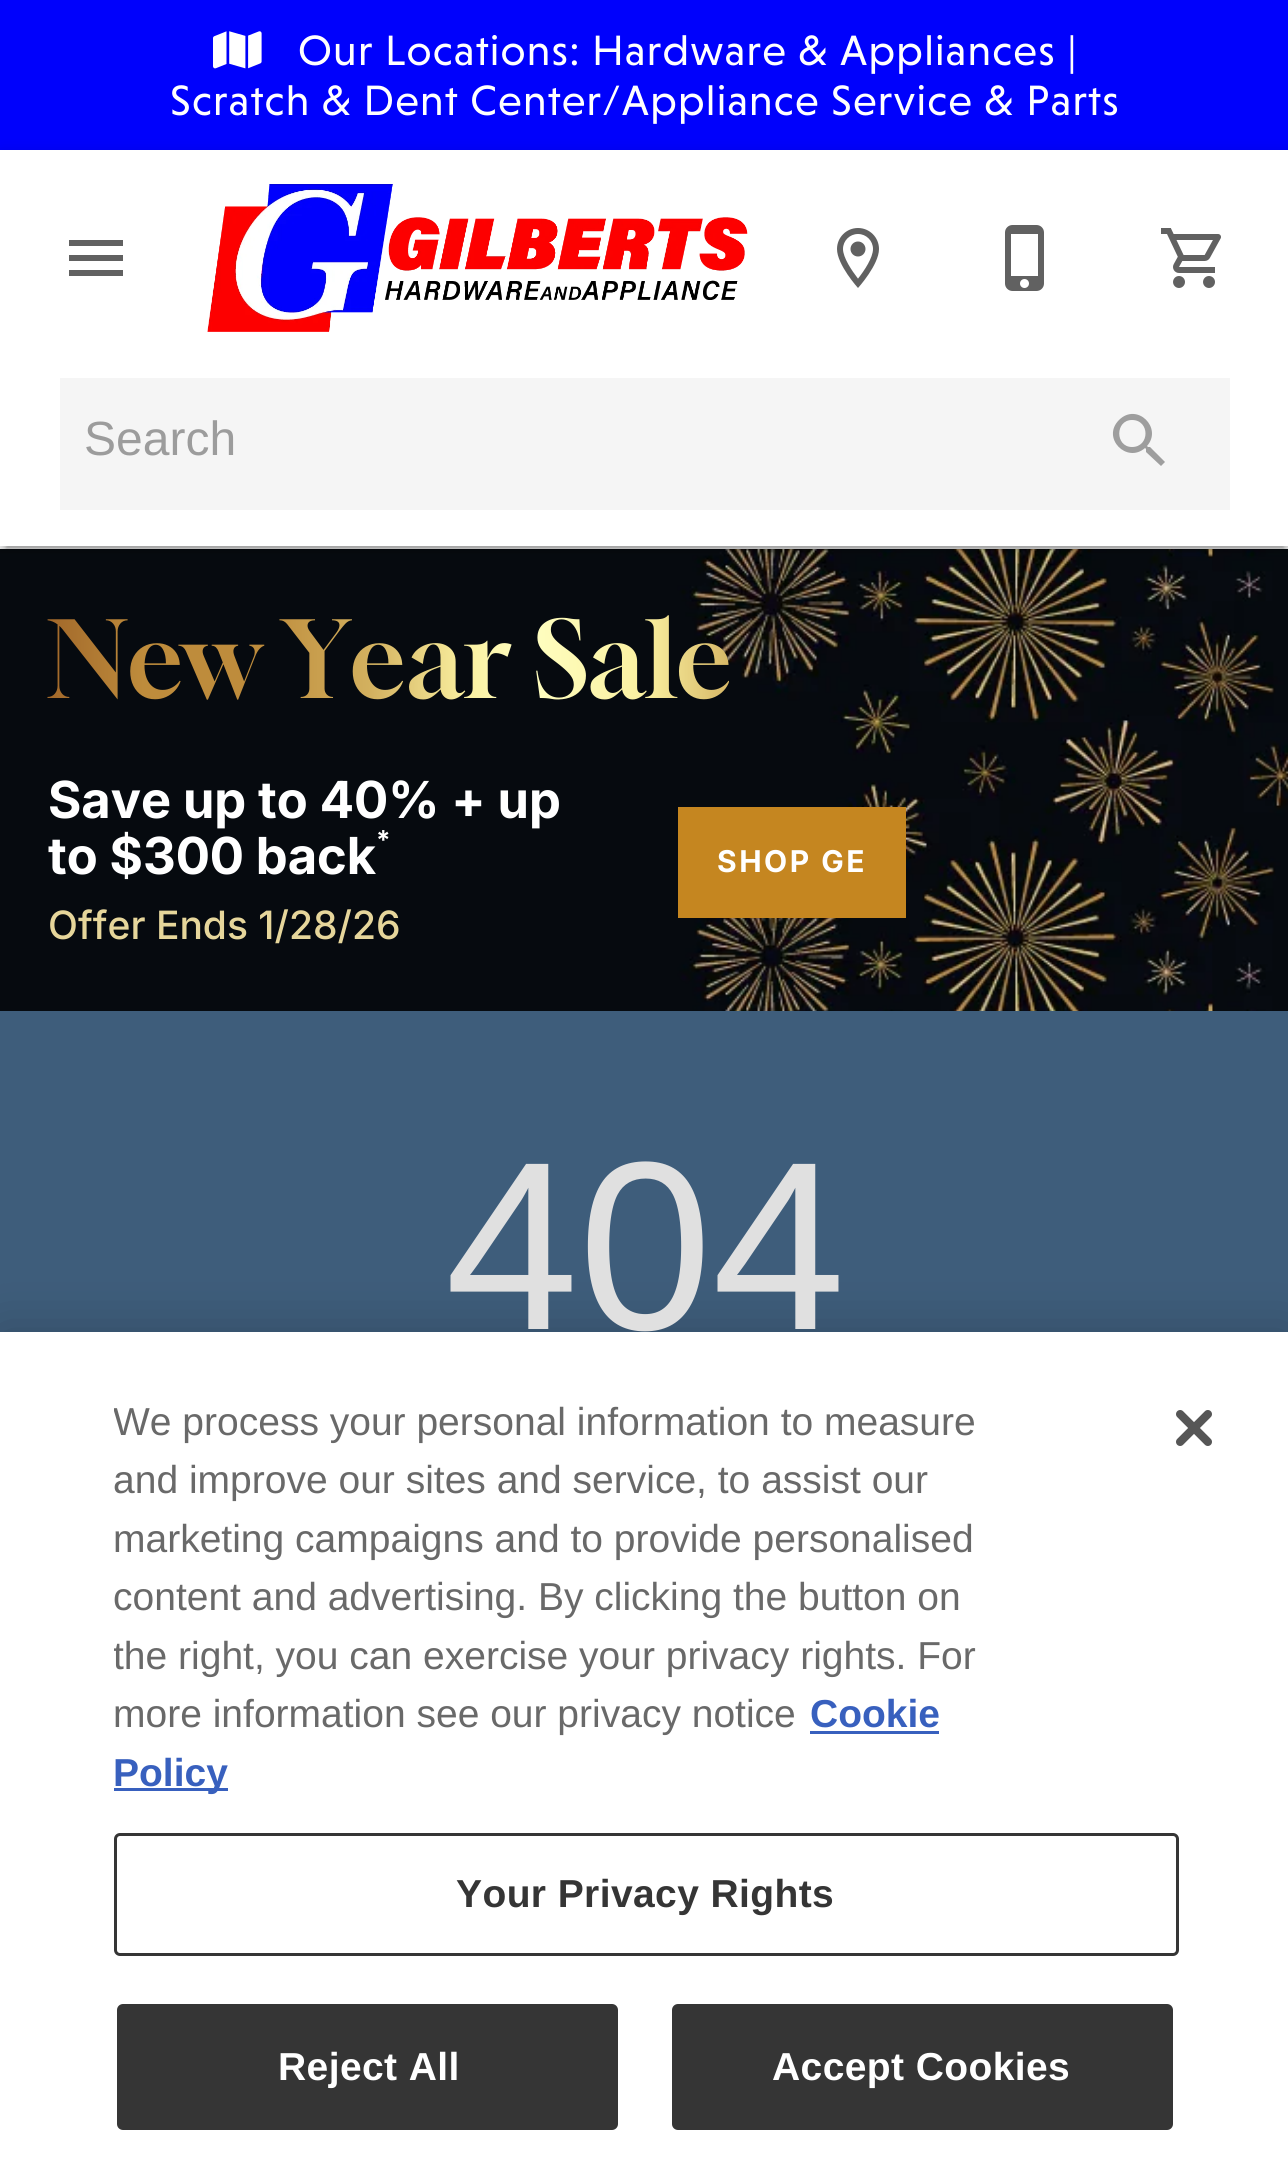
#include <cairo/cairo.h>
#include <math.h>
#include <stddef.h>

typedef struct { double x, y; const char *s; } line_t;
typedef struct { double x, y, w, h; unsigned color; } box_t;
static cairo_t *cr;

static void rgb(unsigned color)
{
	cairo_set_source_rgb(cr, (color >> 16) / 255.0, (color >> 8 & 255) / 255.0, (color & 255) / 255.0);
}

static void tracked(double x, double y, const char *s, double letter, double word)
{
	cairo_move_to(cr, x, y);
	while (*s) {
		char ch[5] = {0};
		int n = 0;
		do ch[n++] = *s++; while ((*s & 0xC0) == 0x80);
		cairo_show_text(cr, ch);
		cairo_rel_move_to(cr, letter + word * (*ch == ' '), 0);
	}
}

static void rrect(double x, double y, double w, double h, double r)
{
	cairo_new_sub_path(cr);
	cairo_arc(cr, x + w - r, y + h - r, r, 0, M_PI / 2);
	cairo_arc(cr, x + r, y + h - r, r, M_PI / 2, M_PI);
	cairo_arc(cr, x + r, y + r, r, M_PI, 1.5 * M_PI);
	cairo_arc(cr, x + w - r, y + r, r, 1.5 * M_PI, 2 * M_PI);
	cairo_close_path(cr);
}

static void soft_shadow(double x, double y, double w, double h, double r, double blur, double alpha)
{
	cairo_push_group_with_content(cr, CAIRO_CONTENT_ALPHA);
	cairo_set_operator(cr, CAIRO_OPERATOR_SOURCE);
	for (int i = 15; i >= -15 && fmin(w, h) + blur * i / 3 > 0; i -= 2) {
		double e = blur * i / 6;
		cairo_set_source_rgba(cr, 0, 0, 0, alpha * erfc((i - 1) / 8.5) / 2);
		rrect(x - e, y - e, w + 2 * e, h + 2 * e, fmax(0, fmin(r + e + blur * .6, fmin(w, h) / 2 + e)));
		cairo_fill(cr);
	}
	cairo_pattern_t *soft = cairo_pop_group(cr);
	cairo_mask(cr, soft);
	cairo_pattern_destroy(soft);
}

static void image(const char *path, double x, double y, double w, double h)
{
	cairo_surface_t *image = cairo_image_surface_create_from_png(path);
	cairo_save(cr);
	cairo_set_source_surface(cr, image, x, y);
	cairo_rectangle(cr, x, y, w, h);
	cairo_fill(cr);
	cairo_restore(cr);
	cairo_surface_destroy(image);
}

int main(void) {
	cairo_surface_t *surface = cairo_image_surface_create(CAIRO_FORMAT_RGB24, 1288, 2176);
	cr = cairo_create(surface);
	cairo_font_options_t *options = cairo_font_options_create();
	cairo_font_options_set_hint_metrics(options, CAIRO_HINT_METRICS_OFF);
	cairo_font_options_set_hint_style(options, CAIRO_HINT_STYLE_NONE);
	cairo_set_font_options(cr, options);
	cairo_set_miter_limit(cr, 4);
	cairo_pattern_t *gradient;
	rgb(0xffffff);
	cairo_paint(cr);
	rgb(0x0001fc);
	cairo_rectangle(cr, 0, 0, 1288, 150);
	cairo_fill(cr);
	image("img/1.png", 213, 31, 49, 38);
	image("img/6.png", 0, 549, 1288, 462);
	rgb(0x000000);
	soft_shadow(0, 153, 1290, 396, 0, 7.5, 0.12);
	soft_shadow(0, 156, 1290, 396, 0, 3, 0.14);
	soft_shadow(6, 165, 1278, 384, 0, 1.5, 0.2);
	rgb(0xffffff);
	cairo_rectangle(cr, 0, 150, 1288, 396);
	cairo_fill(cr);
	rgb(0x616161);
	cairo_new_path(cr);
	cairo_move_to(cr, 69, 276);
	cairo_line_to(cr, 123, 276);
	cairo_line_to(cr, 123, 270);
	cairo_line_to(cr, 69, 270);
	cairo_close_path(cr);
	cairo_move_to(cr, 69, 261);
	cairo_line_to(cr, 123, 261);
	cairo_line_to(cr, 123, 255);
	cairo_line_to(cr, 69, 255);
	cairo_close_path(cr);
	cairo_move_to(cr, 69, 240);
	cairo_line_to(cr, 69, 246);
	cairo_line_to(cr, 123, 246);
	cairo_line_to(cr, 123, 240);
	cairo_close_path(cr);
	cairo_fill(cr);
	image("img/2.png", 207, 184, 541, 148);
	image("img/3.png", 837, 228, 42, 60);
	image("img/4.png", 1005, 225, 39, 66);
	image("img/5.png", 1161, 228, 60, 60);
	rgb(0xf5f5f5);
	cairo_rectangle(cr, 60, 378, 1170, 132);
	cairo_fill(cr);
	rgb(0x9e9e9e);
	cairo_new_path(cr);
	cairo_move_to(cr, 1150, 447);
	cairo_line_to(cr, 1148, 447);
	cairo_line_to(cr, 1147, 446);
	cairo_curve_to(cr, 1163, 428, 1137, 402, 1119, 420);
	cairo_curve_to(cr, 1101, 438, 1127, 464, 1145, 448);
	cairo_line_to(cr, 1146, 449);
	cairo_line_to(cr, 1146, 452);
	cairo_line_to(cr, 1161, 466);
	cairo_line_to(cr, 1165, 462);
	cairo_close_path(cr);
	cairo_move_to(cr, 1132, 447);
	cairo_curve_to(cr, 1115, 447, 1115, 420, 1132, 420);
	cairo_curve_to(cr, 1150, 420, 1150, 447, 1132, 447);
	cairo_close_path(cr);
	cairo_fill(cr);
	rgb(0xc58620);
	cairo_rectangle(cr, 678, 807, 228, 111);
	cairo_fill(cr);
	rgb(0x3e5d7b);
	cairo_rectangle(cr, 0, 1011, 1288, 321);
	cairo_fill(cr);
	rgb(0x000000);
	soft_shadow(0, 1332, 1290, 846, 0, 27, 0.2);
	{
		static const box_t items[] = {
			{0, 1332, 1288, 844, 0xffffff},
			{810, 1731, 129, 3, 0x3860be},
			{114, 1788, 114, 3, 0x3860be},
		};
		for (size_t i = 0; i < sizeof items / sizeof *items; i++) {
			rgb(items[i].color);
			cairo_rectangle(cr, items[i].x, items[i].y, items[i].w, items[i].h);
			cairo_fill(cr);
		}
	}
	rrect(115.5, 1834.5, 1062, 120, 4.5);
	rgb(0x353535);
	cairo_set_line_width(cr, 3);
	cairo_stroke(cr);
	rrect(118.5, 2005.5, 498, 123, 4.5);
	cairo_fill_preserve(cr);
	cairo_stroke(cr);
	rrect(673.5, 2005.5, 498, 123, 4.5);
	cairo_fill_preserve(cr);
	cairo_stroke(cr);
	image("img/7.png", 1176, 1410, 36, 36);
	cairo_select_font_face(cr, "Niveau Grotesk", CAIRO_FONT_SLANT_NORMAL, CAIRO_FONT_WEIGHT_NORMAL);
	cairo_set_font_size(cr, 43.2);
	rgb(0xffffff);
	tracked(298, 65, "Our Locations: Hardware & Appliances |", 1.2, 0);
	tracked(170, 115, "Scratch & Dent Center/Appliance Service & Parts", 1.2, 0);
	cairo_select_font_face(cr, "Liberation Sans", CAIRO_FONT_SLANT_NORMAL, CAIRO_FONT_WEIGHT_NORMAL);
	cairo_set_font_size(cr, 48);
	rgb(0x9c9c9c);
	cairo_move_to(cr, 84, 455);
	cairo_show_text(cr, "Search");
	cairo_select_font_face(cr, "Gloock", CAIRO_FONT_SLANT_NORMAL, CAIRO_FONT_WEIGHT_NORMAL);
	cairo_set_font_size(cr, 105);
	gradient = cairo_pattern_create_linear(48, 661, 1242, 661);
	cairo_pattern_add_color_stop_rgba(gradient, 0, 0.635, 0.408, 0.165, 1);
	cairo_pattern_add_color_stop_rgba(gradient, 0.08, 0.745, 0.549, 0.235, 1);
	cairo_pattern_add_color_stop_rgba(gradient, 0.18, 0.745, 0.549, 0.235, 1);
	cairo_pattern_add_color_stop_rgba(gradient, 0.27, 0.827, 0.694, 0.373, 1);
	cairo_pattern_add_color_stop_rgba(gradient, 0.35, 0.98, 0.941, 0.627, 1);
	cairo_pattern_add_color_stop_rgba(gradient, 0.4, 1, 1, 0.761, 1);
	cairo_pattern_add_color_stop_rgba(gradient, 0.5, 0.98, 0.941, 0.627, 1);
	cairo_pattern_add_color_stop_rgba(gradient, 0.58, 0.827, 0.694, 0.373, 1);
	cairo_pattern_add_color_stop_rgba(gradient, 0.67, 0.745, 0.549, 0.235, 1);
	cairo_pattern_add_color_stop_rgba(gradient, 0.77, 0.694, 0.482, 0.196, 1);
	cairo_pattern_add_color_stop_rgba(gradient, 0.83, 0.733, 0.514, 0.196, 1);
	cairo_pattern_add_color_stop_rgba(gradient, 0.88, 0.831, 0.635, 0.271, 1);
	cairo_pattern_add_color_stop_rgba(gradient, 0.93, 0.882, 0.706, 0.325, 1);
	cairo_pattern_add_color_stop_rgba(gradient, 1, 0.643, 0.412, 0.165, 1);
	cairo_set_source(cr, gradient);
	cairo_pattern_destroy(gradient);
	cairo_move_to(cr, 48, 698);
	cairo_show_text(cr, "New Year Sale");
	cairo_select_font_face(cr, "Inter", CAIRO_FONT_SLANT_NORMAL, CAIRO_FONT_WEIGHT_BOLD);
	cairo_set_font_size(cr, 51);
	rgb(0xffffff);
	cairo_move_to(cr, 48, 818);
	cairo_show_text(cr, "Save up to 40% + up");
	cairo_move_to(cr, 48, 874);
	cairo_show_text(cr, "to $300 back");
	cairo_select_font_face(cr, "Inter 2", CAIRO_FONT_SLANT_NORMAL, CAIRO_FONT_WEIGHT_BOLD);
	cairo_set_font_size(cr, 26);
	cairo_move_to(cr, 376, 849);
	cairo_show_text(cr, "*");
	cairo_select_font_face(cr, "Inter Medium", CAIRO_FONT_SLANT_NORMAL, CAIRO_FONT_WEIGHT_NORMAL);
	cairo_set_font_size(cr, 39);
	rgb(0xe6d69b);
	cairo_move_to(cr, 48, 939);
	cairo_show_text(cr, "Offer Ends 1/28/26");
	cairo_select_font_face(cr, "Inter 2", CAIRO_FONT_SLANT_NORMAL, CAIRO_FONT_WEIGHT_BOLD);
	cairo_set_font_size(cr, 30);
	rgb(0xffffff);
	tracked(717, 872, "SHOP GE", 2.5, 0);
	cairo_select_font_face(cr, "Liberation Sans", CAIRO_FONT_SLANT_NORMAL, CAIRO_FONT_WEIGHT_NORMAL);
	cairo_set_font_size(cr, 240);
	rgb(0xe0e0e0);
	cairo_move_to(cr, 445, 1329);
	cairo_show_text(cr, "404");
	cairo_save(cr);
	cairo_rectangle(cr, 114, 1392, 1005, 411);
	cairo_clip(cr);
	cairo_set_font_size(cr, 39);
	rgb(0x696969);
	cairo_move_to(cr, 113, 1435);
	cairo_show_text(cr, "We process your personal information to measure");
	cairo_restore(cr);
	cairo_set_font_size(cr, 39);
	rgb(0x696969);
	{
		static const line_t items[] = {
			{113, 1493, "and improve our sites and service, to assist our"},
			{113, 1552, "marketing campaigns and to provide personalised"},
			{113, 1610, "content and advertising. By clicking the button on"},
		};
		for (size_t i = 0; i < sizeof items / sizeof *items; i++) {
			cairo_move_to(cr, items[i].x, items[i].y);
			cairo_show_text(cr, items[i].s);
		}
	}
	cairo_save(cr);
	cairo_rectangle(cr, 114, 1392, 1005, 411);
	cairo_clip(cr);
	cairo_move_to(cr, 113, 1669);
	cairo_show_text(cr, "the right, you can exercise your privacy rights. For");
	cairo_restore(cr);
	cairo_move_to(cr, 113, 1727);
	cairo_show_text(cr, "more information see our privacy notice");
	cairo_select_font_face(cr, "Liberation Sans", CAIRO_FONT_SLANT_NORMAL, CAIRO_FONT_WEIGHT_BOLD);
	rgb(0x3860be);
	cairo_move_to(cr, 810, 1727);
	cairo_show_text(cr, "Cookie");
	cairo_move_to(cr, 113, 1786);
	cairo_show_text(cr, "Policy");
	rgb(0x353535);
	tracked(456, 1907, "Your Privacy Rights", 0.4, 0);
	rgb(0xffffff);
	tracked(278, 2080, "Reject All", 0.4, 0);
	tracked(772, 2080, "Accept Cookies", 0.4, 0);
	cairo_surface_write_to_png(surface, "page.png");
	cairo_font_options_destroy(options);
	cairo_destroy(cr);
	cairo_surface_destroy(surface);
	return 0;
}
